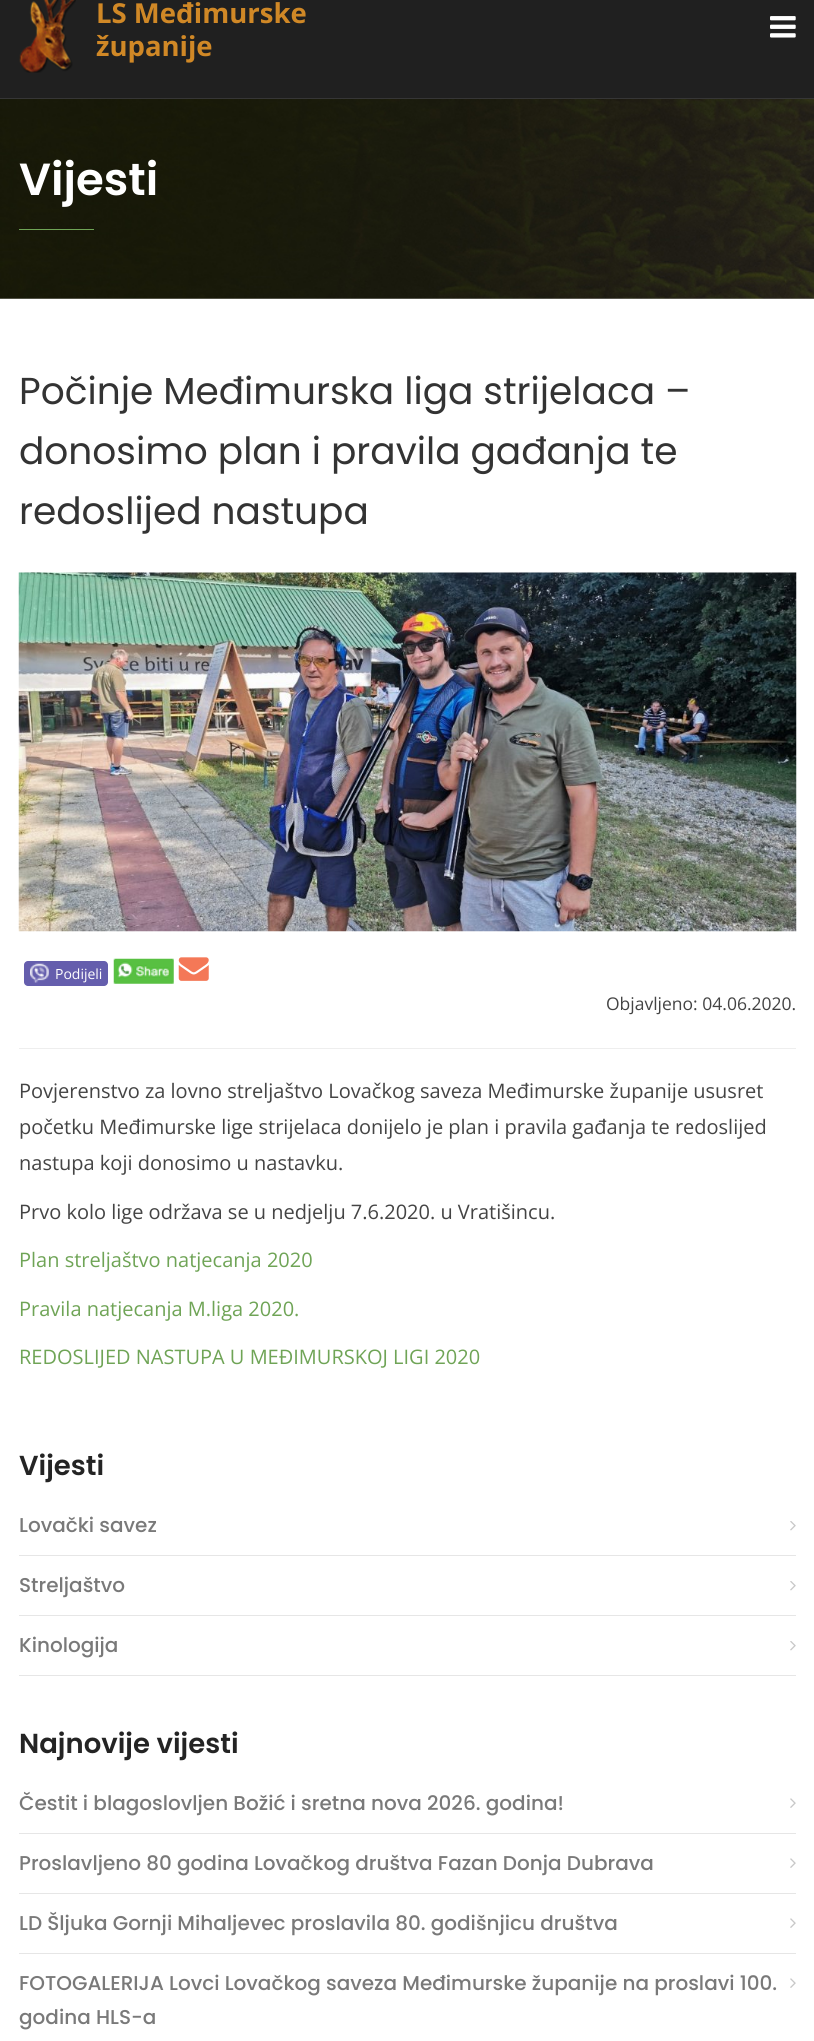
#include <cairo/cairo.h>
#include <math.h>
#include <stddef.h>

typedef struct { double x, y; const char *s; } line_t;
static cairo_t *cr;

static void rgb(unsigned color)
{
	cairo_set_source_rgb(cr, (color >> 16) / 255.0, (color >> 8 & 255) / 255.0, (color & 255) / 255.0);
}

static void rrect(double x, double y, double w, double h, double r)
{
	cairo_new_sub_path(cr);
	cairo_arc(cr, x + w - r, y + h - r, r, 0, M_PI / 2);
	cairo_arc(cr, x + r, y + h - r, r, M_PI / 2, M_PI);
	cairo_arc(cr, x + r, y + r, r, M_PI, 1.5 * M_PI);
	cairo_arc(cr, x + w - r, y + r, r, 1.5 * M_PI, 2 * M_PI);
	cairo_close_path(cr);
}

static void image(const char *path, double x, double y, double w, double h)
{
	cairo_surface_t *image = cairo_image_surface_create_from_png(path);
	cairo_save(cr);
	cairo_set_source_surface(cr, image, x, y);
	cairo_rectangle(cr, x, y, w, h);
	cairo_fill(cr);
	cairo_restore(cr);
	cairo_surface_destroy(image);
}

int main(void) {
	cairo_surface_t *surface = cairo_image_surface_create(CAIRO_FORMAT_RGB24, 814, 2041);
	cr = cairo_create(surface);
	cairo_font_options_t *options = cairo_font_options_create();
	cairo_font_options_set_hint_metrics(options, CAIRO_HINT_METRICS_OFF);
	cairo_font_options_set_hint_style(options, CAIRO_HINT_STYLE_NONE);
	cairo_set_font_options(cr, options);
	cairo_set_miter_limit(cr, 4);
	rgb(0xffffff);
	cairo_paint(cr);
	rgb(0x202020);
	cairo_rectangle(cr, 0, 0, 814, 98);
	cairo_fill(cr);
	rgb(0x363636);
	cairo_rectangle(cr, 0, 98, 814, 1);
	cairo_fill(cr);
	image("img/1.png", 19, 0, 57, 73);
	image("img/2.png", 770, 16, 26, 22);
	image("img/3.png", 0, 99, 814, 200);
	rgb(0x6fa456);
	cairo_rectangle(cr, 19, 229, 75, 1);
	cairo_fill(cr);
	image("img/4.png", 18, 572, 779, 360);
	rgb(0x655ead);
	rrect(24, 961, 84, 25, 4);
	cairo_fill(cr);
	image("img/5.png", 30, 963, 19, 20);
	image("img/6.png", 113, 958, 61, 26);
	image("img/7.png", 178, 957, 31, 24);
	rgb(0xeeeeee);
	cairo_rectangle(cr, 19, 1048, 777, 1);
	cairo_fill(cr);
	rgb(0xe6e6e6);
	cairo_rectangle(cr, 19, 1555, 777, 1);
	cairo_fill(cr);
	image("img/8.png", 790, 1521, 6, 10);
	cairo_rectangle(cr, 19, 1615, 777, 1);
	cairo_fill(cr);
	image("img/8.png", 790, 1581, 6, 10);
	cairo_rectangle(cr, 19, 1675, 777, 1);
	cairo_fill(cr);
	image("img/8.png", 790, 1641, 6, 10);
	cairo_rectangle(cr, 19, 1833, 777, 1);
	cairo_fill(cr);
	image("img/9.png", 790, 1798, 6, 10);
	cairo_rectangle(cr, 19, 1893, 777, 1);
	cairo_fill(cr);
	image("img/9.png", 790, 1858, 6, 10);
	cairo_rectangle(cr, 19, 1953, 777, 1);
	cairo_fill(cr);
	image("img/9.png", 790, 1918, 6, 10);
	image("img/9.png", 790, 1978, 6, 10);
	cairo_select_font_face(cr, "Open Sans", CAIRO_FONT_SLANT_NORMAL, CAIRO_FONT_WEIGHT_BOLD);
	cairo_set_font_size(cr, 27.5);
	rgb(0xd08826);
	cairo_move_to(cr, 96, 23);
	cairo_show_text(cr, "LS Međimurske");
	cairo_move_to(cr, 96, 56);
	cairo_show_text(cr, "županije");
	cairo_select_font_face(cr, "Poppins SemiBold", CAIRO_FONT_SLANT_NORMAL, CAIRO_FONT_WEIGHT_NORMAL);
	cairo_set_font_size(cr, 45);
	rgb(0xffffff);
	cairo_move_to(cr, 19, 195);
	cairo_show_text(cr, "Vijesti");
	cairo_select_font_face(cr, "Poppins", CAIRO_FONT_SLANT_NORMAL, CAIRO_FONT_WEIGHT_NORMAL);
	cairo_set_font_size(cr, 37.5);
	rgb(0x333333);
	{
		static const line_t items[] = {
			{19, 404, "Počinje Međimurska liga strijelaca –"},
			{19, 464, "donosimo plan i pravila gađanja te"},
			{19, 524, "redoslijed nastupa"},
		};
		for (size_t i = 0; i < sizeof items / sizeof *items; i++) {
			cairo_move_to(cr, items[i].x, items[i].y);
			cairo_show_text(cr, items[i].s);
		}
	}
	cairo_select_font_face(cr, "Open Sans", CAIRO_FONT_SLANT_NORMAL, CAIRO_FONT_WEIGHT_NORMAL);
	cairo_set_font_size(cr, 14);
	rgb(0xffffff);
	cairo_move_to(cr, 55, 979);
	cairo_show_text(cr, "Podijeli");
	cairo_set_font_size(cr, 17.5);
	rgb(0x444444);
	cairo_move_to(cr, 606, 1010);
	cairo_show_text(cr, "Objavljeno: 04.06.2020.");
	cairo_set_font_size(cr, 20);
	{
		static const line_t items[] = {
			{19, 1098, "Povjerenstvo za lovno streljaštvo Lovačkog saveza Međimurske županije ususret"},
			{19, 1134, "početku Međimurske lige strijelaca donijelo je plan i pravila gađanja te redoslijed"},
			{19, 1170, "nastupa koji donosimo u nastavku."},
			{19, 1219, "Prvo kolo lige održava se u nedjelju 7.6.2020. u Vratišincu."},
		};
		for (size_t i = 0; i < sizeof items / sizeof *items; i++) {
			cairo_move_to(cr, items[i].x, items[i].y);
			cairo_show_text(cr, items[i].s);
		}
	}
	rgb(0x6fa456);
	{
		static const line_t items[] = {
			{19, 1267, "Plan streljaštvo natjecanja 2020"},
			{19, 1316, "Pravila natjecanja M.liga 2020."},
			{19, 1364, "REDOSLIJED NASTUPA U MEĐIMURSKOJ LIGI 2020"},
		};
		for (size_t i = 0; i < sizeof items / sizeof *items; i++) {
			cairo_move_to(cr, items[i].x, items[i].y);
			cairo_show_text(cr, items[i].s);
		}
	}
	cairo_select_font_face(cr, "Poppins SemiBold", CAIRO_FONT_SLANT_NORMAL, CAIRO_FONT_WEIGHT_NORMAL);
	cairo_set_font_size(cr, 27.5);
	rgb(0x242424);
	cairo_move_to(cr, 19, 1475);
	cairo_show_text(cr, "Vijesti");
	cairo_select_font_face(cr, "Poppins Medium", CAIRO_FONT_SLANT_NORMAL, CAIRO_FONT_WEIGHT_NORMAL);
	cairo_set_font_size(cr, 20);
	rgb(0x797979);
	{
		static const line_t items[] = {
			{19, 1532, "Lovački savez"},
			{19, 1592, "Streljaštvo"},
			{19, 1652, "Kinologija"},
		};
		for (size_t i = 0; i < sizeof items / sizeof *items; i++) {
			cairo_move_to(cr, items[i].x, items[i].y);
			cairo_show_text(cr, items[i].s);
		}
	}
	cairo_select_font_face(cr, "Poppins SemiBold", CAIRO_FONT_SLANT_NORMAL, CAIRO_FONT_WEIGHT_NORMAL);
	cairo_set_font_size(cr, 27.5);
	rgb(0x242424);
	cairo_move_to(cr, 19, 1753);
	cairo_show_text(cr, "Najnovije vijesti");
	cairo_select_font_face(cr, "Poppins Medium", CAIRO_FONT_SLANT_NORMAL, CAIRO_FONT_WEIGHT_NORMAL);
	cairo_set_font_size(cr, 20);
	rgb(0x797979);
	{
		static const line_t items[] = {
			{19, 1810, "Čestit i blagoslovljen Božić i sretna nova 2026. godina!"},
			{19, 1870, "Proslavljeno 80 godina Lovačkog društva Fazan Donja Dubrava"},
			{19, 1930, "LD Šljuka Gornji Mihaljevec proslavila 80. godišnjicu društva"},
			{19, 1990, "FOTOGALERIJA Lovci Lovačkog saveza Međimurske županije na proslavi 100."},
			{19, 2024, "godina HLS-a"},
		};
		for (size_t i = 0; i < sizeof items / sizeof *items; i++) {
			cairo_move_to(cr, items[i].x, items[i].y);
			cairo_show_text(cr, items[i].s);
		}
	}
	cairo_surface_write_to_png(surface, "page.png");
	cairo_font_options_destroy(options);
	cairo_destroy(cr);
	cairo_surface_destroy(surface);
	return 0;
}
